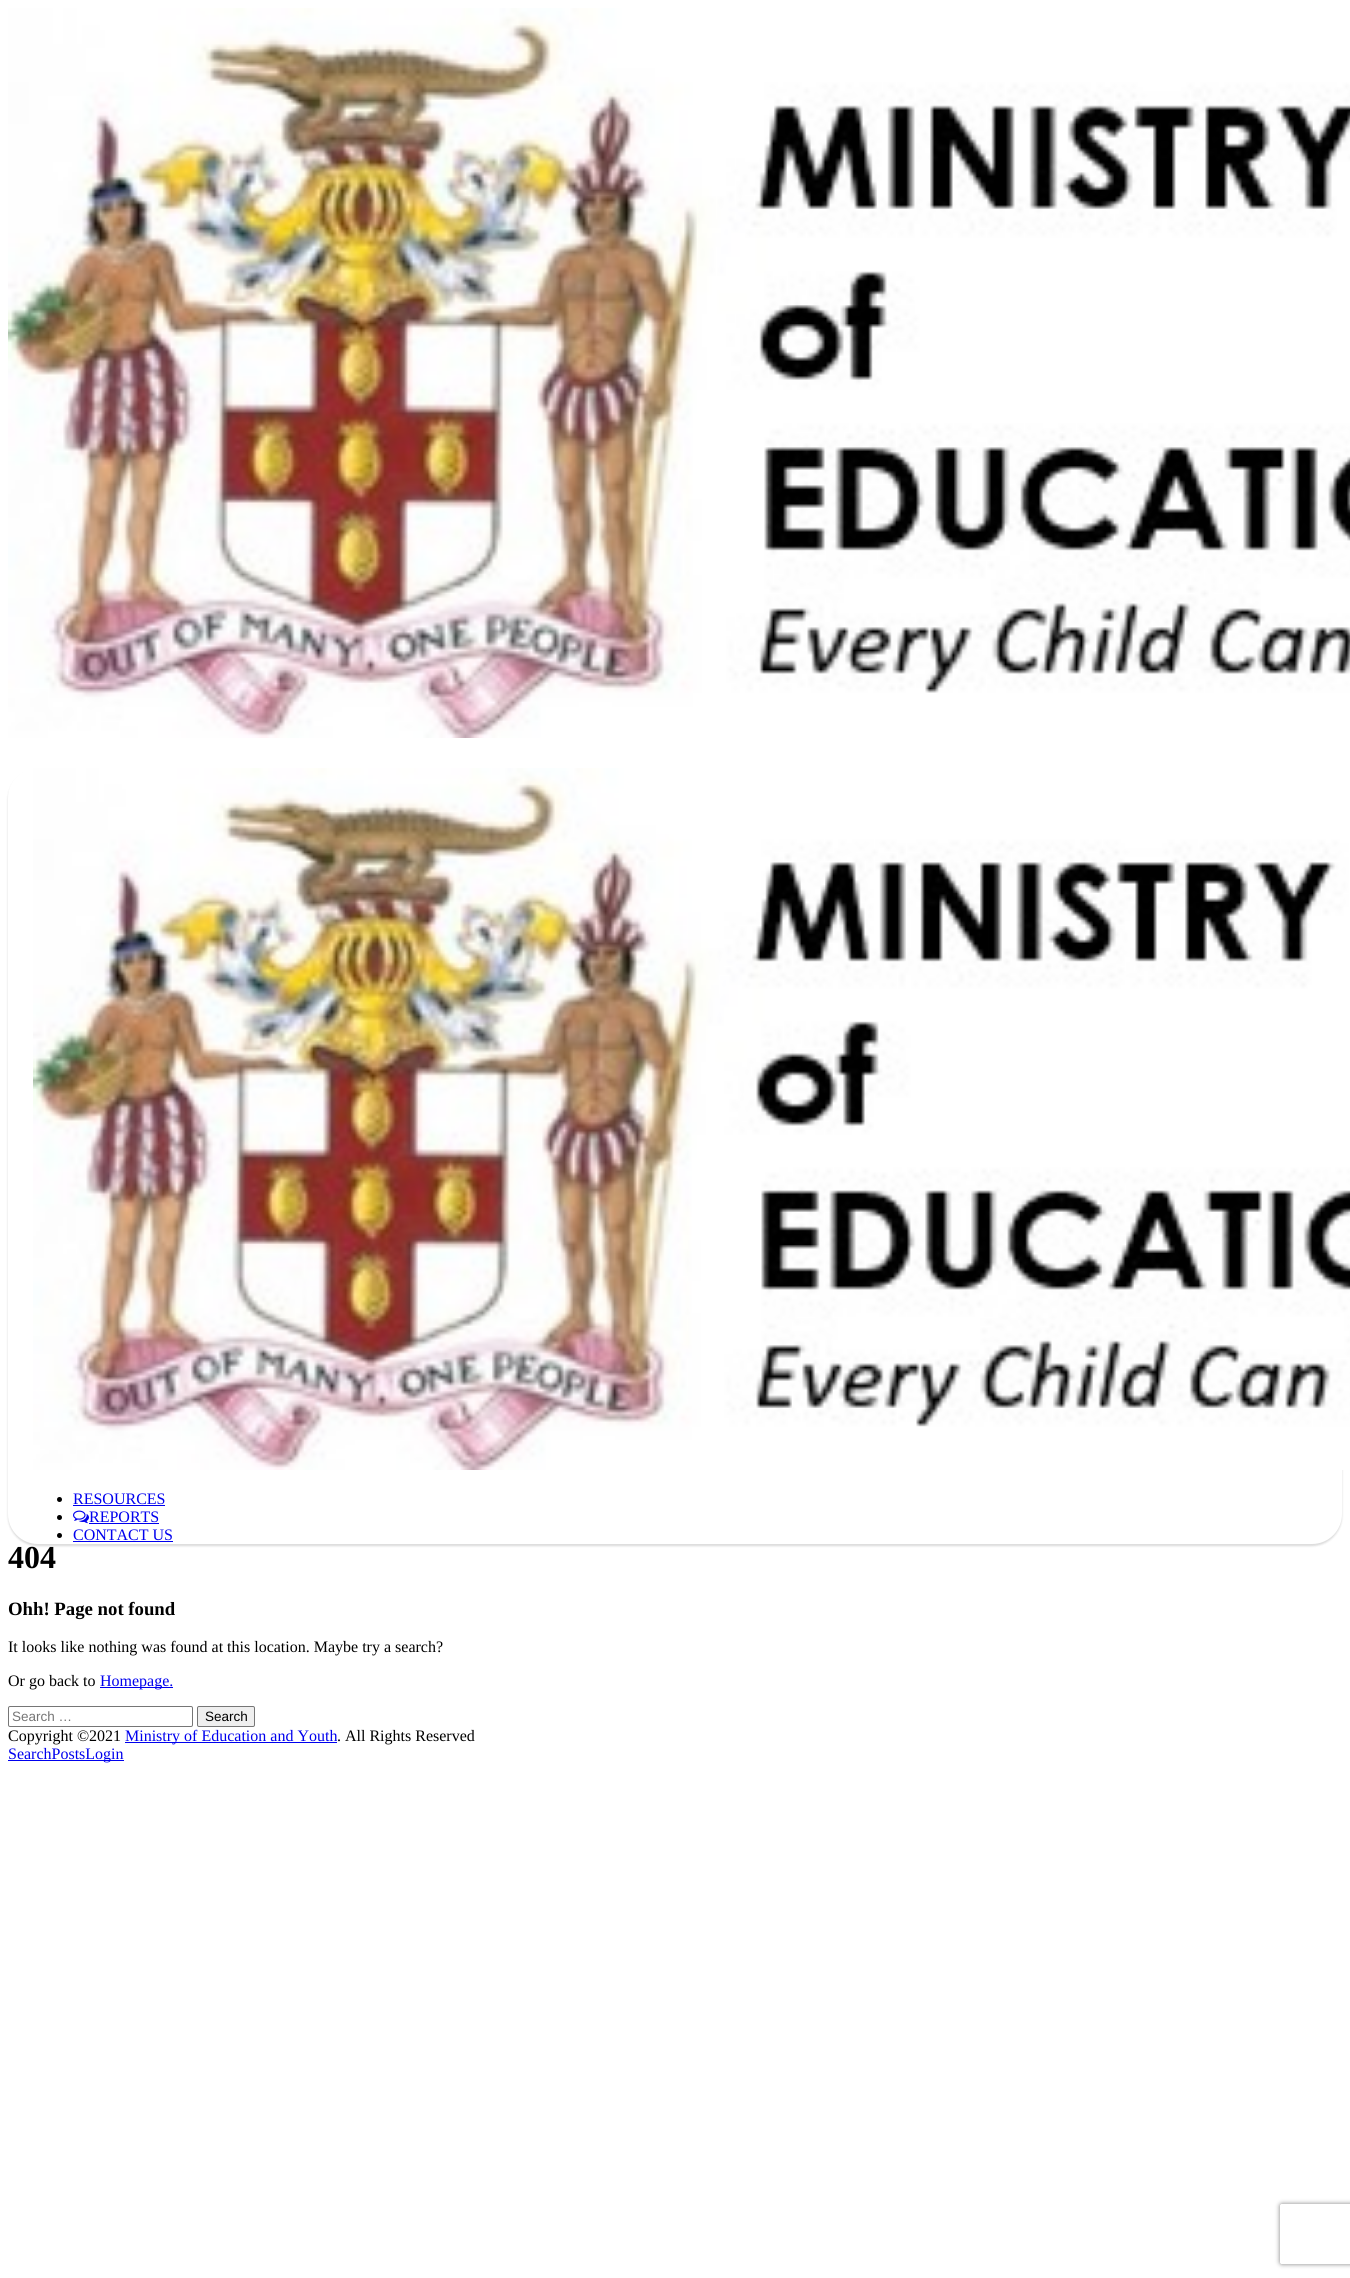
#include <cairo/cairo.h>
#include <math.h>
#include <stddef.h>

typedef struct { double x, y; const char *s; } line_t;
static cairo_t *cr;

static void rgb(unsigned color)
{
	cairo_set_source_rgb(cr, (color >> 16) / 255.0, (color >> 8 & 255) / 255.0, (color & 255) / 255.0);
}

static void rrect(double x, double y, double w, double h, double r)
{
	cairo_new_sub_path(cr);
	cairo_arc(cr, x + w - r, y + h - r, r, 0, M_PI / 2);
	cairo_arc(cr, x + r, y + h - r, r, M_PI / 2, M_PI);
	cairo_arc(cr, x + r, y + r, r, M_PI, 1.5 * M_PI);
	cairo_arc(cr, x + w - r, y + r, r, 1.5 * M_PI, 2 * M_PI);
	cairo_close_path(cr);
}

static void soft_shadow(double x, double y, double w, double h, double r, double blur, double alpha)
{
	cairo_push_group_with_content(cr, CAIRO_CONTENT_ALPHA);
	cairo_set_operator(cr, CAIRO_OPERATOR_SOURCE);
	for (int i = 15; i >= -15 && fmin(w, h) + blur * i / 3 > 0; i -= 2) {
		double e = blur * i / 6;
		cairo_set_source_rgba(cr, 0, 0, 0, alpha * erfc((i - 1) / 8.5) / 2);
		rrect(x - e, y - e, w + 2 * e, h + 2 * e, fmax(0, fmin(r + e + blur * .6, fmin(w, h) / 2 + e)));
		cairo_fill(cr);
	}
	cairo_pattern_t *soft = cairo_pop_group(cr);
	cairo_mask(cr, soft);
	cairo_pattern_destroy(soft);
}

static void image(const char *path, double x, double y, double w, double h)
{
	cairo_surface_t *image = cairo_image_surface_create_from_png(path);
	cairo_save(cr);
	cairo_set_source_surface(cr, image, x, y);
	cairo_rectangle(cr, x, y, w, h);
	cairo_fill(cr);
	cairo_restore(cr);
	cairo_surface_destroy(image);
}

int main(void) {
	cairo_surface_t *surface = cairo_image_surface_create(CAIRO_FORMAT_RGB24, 1350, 2278);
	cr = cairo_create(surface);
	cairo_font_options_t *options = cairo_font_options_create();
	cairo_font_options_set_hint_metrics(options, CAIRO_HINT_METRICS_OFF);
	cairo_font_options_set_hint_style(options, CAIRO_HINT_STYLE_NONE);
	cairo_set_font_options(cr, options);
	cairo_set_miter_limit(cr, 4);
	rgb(0xffffff);
	cairo_paint(cr);
	image("img/1.png", 8, 8, 1342, 730);
	rgb(0x040404);
	soft_shadow(8, 770, 1334, 776, 30, 1, 0.15);
	rgb(0xffffff);
	rrect(8, 768, 1334, 776, 30);
	cairo_fill(cr);
	image("img/2.png", 33, 768, 1317, 702);
	rgb(0x000000);
	cairo_arc(cr, 59.5, 1499.5, 2.5, 0, 2 * M_PI);
	cairo_fill(cr);
	rgb(0x0000ee);
	cairo_rectangle(cr, 73, 1505, 92, 1);
	cairo_fill(cr);
	rgb(0x000000);
	cairo_arc(cr, 59.5, 1517.5, 2.5, 0, 2 * M_PI);
	cairo_fill(cr);
	image("img/3.png", 73, 1510, 16, 14);
	rgb(0x0000ee);
	cairo_rectangle(cr, 89, 1523, 70, 1);
	cairo_fill(cr);
	rgb(0x000000);
	cairo_arc(cr, 59.5, 1535.5, 2.5, 0, 2 * M_PI);
	cairo_fill(cr);
	rgb(0x0000ee);
	cairo_rectangle(cr, 73, 1541, 100, 1);
	cairo_fill(cr);
	cairo_rectangle(cr, 100, 1687, 73, 1);
	cairo_fill(cr);
	rrect(8.5, 1706.5, 184, 20, 1.5);
	rgb(0x767676);
	cairo_set_line_width(cr, 1);
	cairo_stroke(cr);
	rgb(0xefefef);
	rrect(197.5, 1706.5, 57, 20, 1.5);
	cairo_fill_preserve(cr);
	rgb(0x767676);
	cairo_stroke(cr);
	rgb(0x0000ee);
	cairo_rectangle(cr, 125, 1742, 212, 1);
	cairo_fill(cr);
	cairo_rectangle(cr, 8, 1760, 116, 1);
	cairo_fill(cr);
	cairo_save(cr);
	cairo_set_fill_rule(cr, CAIRO_FILL_RULE_EVEN_ODD);
	cairo_new_path(cr);
	cairo_move_to(cr, 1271, 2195);
	cairo_line_to(cr, 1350, 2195);
	cairo_line_to(cr, 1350, 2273);
	cairo_line_to(cr, 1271, 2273);
	cairo_close_path(cr);
	cairo_move_to(cr, 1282, 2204);
	cairo_line_to(cr, 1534, 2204);
	cairo_curve_to(cr, 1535, 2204, 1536, 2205, 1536, 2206);
	cairo_line_to(cr, 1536, 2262);
	cairo_curve_to(cr, 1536, 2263, 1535, 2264, 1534, 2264);
	cairo_line_to(cr, 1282, 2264);
	cairo_curve_to(cr, 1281, 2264, 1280, 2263, 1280, 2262);
	cairo_line_to(cr, 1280, 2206);
	cairo_curve_to(cr, 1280, 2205, 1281, 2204, 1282, 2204);
	cairo_close_path(cr);
	cairo_clip(cr);
	rgb(0x808080);
	soft_shadow(1280, 2204, 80, 60, 2, 2.5, 1);
	cairo_restore(cr);
	cairo_select_font_face(cr, "Liberation Serif", CAIRO_FONT_SLANT_NORMAL, CAIRO_FONT_WEIGHT_NORMAL);
	cairo_set_font_size(cr, 16);
	{
		static const line_t items[] = {
			{73, 1504, "RESOURCES"},
			{89, 1522, "REPORTS"},
			{73, 1540, "CONTACT US"},
		};
		for (size_t i = 0; i < sizeof items / sizeof *items; i++) {
			cairo_move_to(cr, items[i].x, items[i].y);
			cairo_show_text(cr, items[i].s);
		}
	}
	cairo_select_font_face(cr, "Liberation Serif", CAIRO_FONT_SLANT_NORMAL, CAIRO_FONT_WEIGHT_BOLD);
	cairo_set_font_size(cr, 32);
	rgb(0x000000);
	cairo_move_to(cr, 8, 1568);
	cairo_show_text(cr, "404");
	cairo_set_font_size(cr, 18.75);
	cairo_move_to(cr, 8, 1615);
	cairo_show_text(cr, "Ohh! Page not found");
	cairo_select_font_face(cr, "Liberation Serif", CAIRO_FONT_SLANT_NORMAL, CAIRO_FONT_WEIGHT_NORMAL);
	cairo_set_font_size(cr, 16);
	cairo_move_to(cr, 8, 1652);
	cairo_show_text(cr, "It looks like nothing was found at this location. Maybe try a search?");
	cairo_move_to(cr, 8, 1686);
	cairo_show_text(cr, "Or go back to");
	rgb(0x0000ee);
	cairo_move_to(cr, 100, 1686);
	cairo_show_text(cr, "Homepage.");
	cairo_select_font_face(cr, "Liberation Sans", CAIRO_FONT_SLANT_NORMAL, CAIRO_FONT_WEIGHT_NORMAL);
	cairo_set_font_size(cr, 13.5);
	rgb(0x757575);
	cairo_move_to(cr, 12, 1721);
	cairo_show_text(cr, "Search …");
	rgb(0x000000);
	cairo_move_to(cr, 205, 1721);
	cairo_show_text(cr, "Search");
	cairo_select_font_face(cr, "Liberation Serif", CAIRO_FONT_SLANT_NORMAL, CAIRO_FONT_WEIGHT_NORMAL);
	cairo_set_font_size(cr, 16);
	cairo_move_to(cr, 8, 1741);
	cairo_show_text(cr, "Copyright ©2021");
	rgb(0x0000ee);
	cairo_move_to(cr, 125, 1741);
	cairo_show_text(cr, "Ministry of Education and Youth");
	rgb(0x000000);
	cairo_move_to(cr, 337, 1741);
	cairo_show_text(cr, ". All Rights Reserved");
	rgb(0x0000ee);
	cairo_move_to(cr, 8, 1759);
	cairo_show_text(cr, "SearchPostsLogin");
	cairo_surface_write_to_png(surface, "page.png");
	cairo_font_options_destroy(options);
	cairo_destroy(cr);
	cairo_surface_destroy(surface);
	return 0;
}
